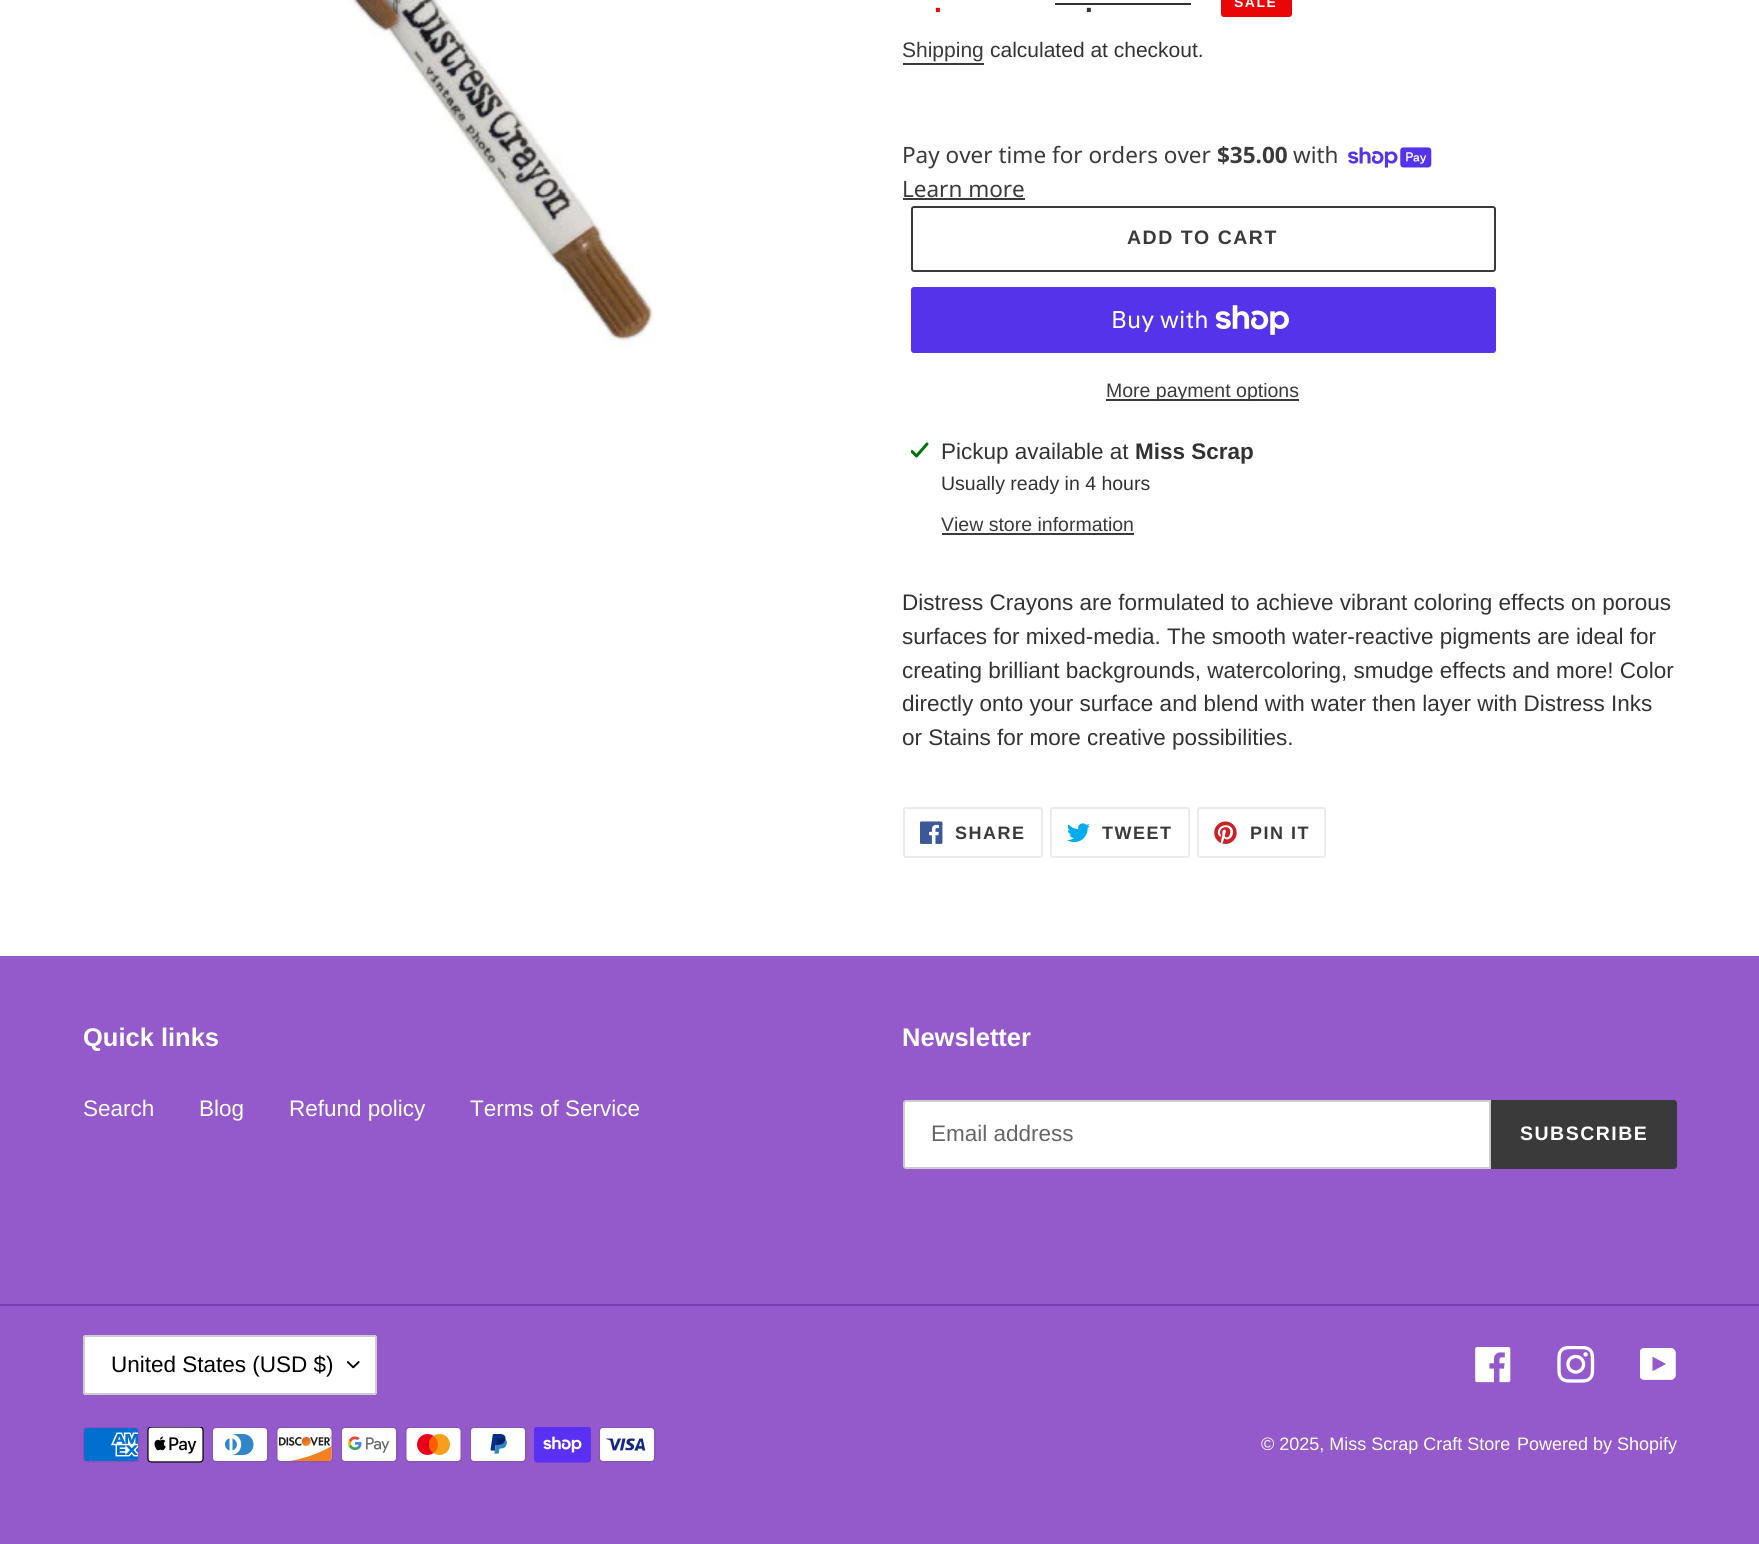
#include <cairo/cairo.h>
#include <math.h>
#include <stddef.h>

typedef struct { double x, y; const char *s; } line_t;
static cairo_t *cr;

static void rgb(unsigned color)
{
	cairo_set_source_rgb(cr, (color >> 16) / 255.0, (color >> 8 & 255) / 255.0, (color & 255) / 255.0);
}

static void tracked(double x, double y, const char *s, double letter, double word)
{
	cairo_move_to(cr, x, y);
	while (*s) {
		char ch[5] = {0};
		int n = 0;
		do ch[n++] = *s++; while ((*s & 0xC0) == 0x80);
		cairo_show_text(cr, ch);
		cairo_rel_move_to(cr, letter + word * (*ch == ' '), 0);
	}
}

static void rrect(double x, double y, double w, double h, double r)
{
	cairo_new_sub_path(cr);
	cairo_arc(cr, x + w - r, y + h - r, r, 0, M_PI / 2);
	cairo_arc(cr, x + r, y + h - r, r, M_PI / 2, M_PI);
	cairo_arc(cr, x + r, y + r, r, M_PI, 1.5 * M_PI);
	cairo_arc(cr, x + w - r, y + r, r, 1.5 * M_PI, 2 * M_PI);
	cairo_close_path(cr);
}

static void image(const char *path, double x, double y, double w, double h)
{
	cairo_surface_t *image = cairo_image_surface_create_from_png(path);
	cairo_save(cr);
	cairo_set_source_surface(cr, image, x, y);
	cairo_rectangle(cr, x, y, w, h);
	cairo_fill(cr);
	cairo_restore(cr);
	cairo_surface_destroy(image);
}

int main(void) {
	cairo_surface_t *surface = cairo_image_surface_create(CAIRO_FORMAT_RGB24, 1759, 1544);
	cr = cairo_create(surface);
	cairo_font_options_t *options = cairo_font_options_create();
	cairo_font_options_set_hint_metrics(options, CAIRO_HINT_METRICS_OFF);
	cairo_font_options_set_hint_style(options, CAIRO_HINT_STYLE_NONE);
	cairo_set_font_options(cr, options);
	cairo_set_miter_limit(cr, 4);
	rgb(0xffffff);
	cairo_paint(cr);
	image("img/1.png", 350, 0, 305, 348);
	rgb(0xea0606);
	rrect(1222, -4, 69, 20, 2);
	cairo_fill_preserve(cr);
	cairo_stroke(cr);
	rgb(0x333232);
	cairo_rectangle(cr, 1055, 3, 136, 2);
	cairo_fill(cr);
	rgb(0x3a3a3a);
	cairo_rectangle(cr, 903, 63, 81, 2);
	cairo_fill(cr);
	image("img/2.png", 1348, 147, 84, 21);
	cairo_rectangle(cr, 903, 198, 122, 2);
	cairo_fill(cr);
	rrect(912, 207, 583, 64, 2);
	cairo_stroke(cr);
	rgb(0x5433eb);
	rrect(911, 287, 585, 66, 3);
	cairo_fill(cr);
	image("img/3.png", 1215, 305, 74, 30);
	rgb(0x3a3a3a);
	cairo_rectangle(cr, 1106, 399, 193, 2);
	cairo_fill(cr);
	image("img/4.png", 911, 442, 18, 16);
	cairo_rectangle(cr, 942, 533, 192, 2);
	cairo_fill(cr);
	rrect(904, 808, 138, 49, 2);
	rgb(0xebebeb);
	cairo_stroke(cr);
	image("img/5.png", 920, 821, 23, 23);
	rrect(1051, 808, 138, 49, 2);
	cairo_stroke(cr);
	image("img/6.png", 1067, 823, 23, 20);
	rrect(1198, 808, 127, 49, 2);
	cairo_stroke(cr);
	image("img/7.png", 1214, 821, 23, 23);
	rgb(0x945acb);
	cairo_rectangle(cr, 0, 956, 1759, 588);
	cairo_fill(cr);
	rgb(0xffffff);
	cairo_new_path(cr);
	cairo_move_to(cr, 906, 1101);
	cairo_line_to(cr, 1490, 1101);
	cairo_line_to(cr, 1490, 1168);
	cairo_line_to(cr, 906, 1168);
	cairo_curve_to(cr, 905, 1168, 904, 1167, 904, 1166);
	cairo_line_to(cr, 904, 1103);
	cairo_curve_to(cr, 904, 1102, 905, 1101, 906, 1101);
	cairo_close_path(cr);
	cairo_fill_preserve(cr);
	rgb(0xcccccc);
	cairo_stroke(cr);
	rgb(0x3a3a3a);
	cairo_new_path(cr);
	cairo_move_to(cr, 1491, 1100);
	cairo_line_to(cr, 1674, 1100);
	cairo_curve_to(cr, 1675.5, 1100, 1677, 1101.5, 1677, 1103);
	cairo_line_to(cr, 1677, 1166);
	cairo_curve_to(cr, 1677, 1167.5, 1675.5, 1169, 1674, 1169);
	cairo_line_to(cr, 1491, 1169);
	cairo_close_path(cr);
	cairo_fill(cr);
	rgb(0x7b3ab8);
	cairo_rectangle(cr, 0, 1304, 1759, 2);
	cairo_fill(cr);
	rgb(0xffffff);
	rrect(83, 1335, 294, 60, 3);
	cairo_fill(cr);
	image("img/8.png", 347, 1361, 13, 8);
	rrect(84, 1336, 292, 58, 2);
	rgb(0xcccccc);
	cairo_stroke(cr);
	image("img/9.png", 1475, 1347, 36, 36);
	image("img/10.png", 1557, 1346, 38, 37);
	image("img/11.png", 1640, 1348, 36, 32);
	image("img/12.png", 83, 1427, 57, 36);
	image("img/13.png", 147, 1427, 57, 36);
	image("img/14.png", 212, 1427, 57, 36);
	image("img/15.png", 276, 1427, 57, 36);
	image("img/16.png", 341, 1427, 57, 36);
	image("img/17.png", 405, 1427, 57, 36);
	image("img/18.png", 470, 1427, 57, 36);
	image("img/19.png", 534, 1427, 57, 36);
	image("img/20.png", 599, 1427, 57, 36);
	cairo_select_font_face(cr, "Liberation Sans", CAIRO_FONT_SLANT_NORMAL, CAIRO_FONT_WEIGHT_BOLD);
	cairo_set_font_size(cr, 14);
	rgb(0xffffff);
	tracked(1234, 7, "SALE", 1.5, 0);
	cairo_set_font_size(cr, 28);
	rgb(0xea0606);
	cairo_move_to(cr, 934, 12);
	cairo_show_text(cr, ".");
	rgb(0x333232);
	cairo_move_to(cr, 1085, 12);
	cairo_show_text(cr, ".");
	cairo_select_font_face(cr, "Liberation Sans", CAIRO_FONT_SLANT_NORMAL, CAIRO_FONT_WEIGHT_NORMAL);
	cairo_set_font_size(cr, 21);
	rgb(0x3a3a3a);
	cairo_move_to(cr, 902, 57);
	cairo_show_text(cr, "Shipping");
	rgb(0x333232);
	cairo_move_to(cr, 990, 57);
	cairo_show_text(cr, "calculated at checkout.");
	cairo_select_font_face(cr, "Noto Sans", CAIRO_FONT_SLANT_NORMAL, CAIRO_FONT_WEIGHT_NORMAL);
	cairo_set_font_size(cr, 22.5);
	rgb(0x3a3a3a);
	cairo_move_to(cr, 902, 163);
	cairo_show_text(cr, "Pay over time for orders over");
	cairo_select_font_face(cr, "Noto Sans", CAIRO_FONT_SLANT_NORMAL, CAIRO_FONT_WEIGHT_BOLD);
	cairo_move_to(cr, 1217, 163);
	cairo_show_text(cr, "$35.00");
	cairo_select_font_face(cr, "Noto Sans", CAIRO_FONT_SLANT_NORMAL, CAIRO_FONT_WEIGHT_NORMAL);
	cairo_move_to(cr, 1293, 163);
	cairo_show_text(cr, "with");
	cairo_move_to(cr, 902, 197);
	cairo_show_text(cr, "Learn more");
	cairo_select_font_face(cr, "Liberation Sans", CAIRO_FONT_SLANT_NORMAL, CAIRO_FONT_WEIGHT_BOLD);
	cairo_set_font_size(cr, 19.5);
	tracked(1127, 244, "ADD TO CART", 1.5, 0);
	cairo_select_font_face(cr, "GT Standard", CAIRO_FONT_SLANT_NORMAL, CAIRO_FONT_WEIGHT_NORMAL);
	cairo_set_font_size(cr, 24);
	rgb(0xffffff);
	cairo_move_to(cr, 1111, 328);
	cairo_show_text(cr, "Buy with");
	cairo_select_font_face(cr, "Liberation Sans", CAIRO_FONT_SLANT_NORMAL, CAIRO_FONT_WEIGHT_NORMAL);
	cairo_set_font_size(cr, 19.5);
	rgb(0x3a3a3a);
	cairo_move_to(cr, 1106, 397);
	cairo_show_text(cr, "More payment options");
	cairo_set_font_size(cr, 22.5);
	rgb(0x333232);
	cairo_move_to(cr, 941, 459);
	cairo_show_text(cr, "Pickup available at");
	cairo_select_font_face(cr, "Liberation Sans", CAIRO_FONT_SLANT_NORMAL, CAIRO_FONT_WEIGHT_BOLD);
	cairo_move_to(cr, 1135, 459);
	cairo_show_text(cr, "Miss Scrap");
	cairo_select_font_face(cr, "Liberation Sans", CAIRO_FONT_SLANT_NORMAL, CAIRO_FONT_WEIGHT_NORMAL);
	cairo_set_font_size(cr, 19.5);
	cairo_move_to(cr, 941, 490);
	cairo_show_text(cr, "Usually ready in 4 hours");
	rgb(0x3a3a3a);
	cairo_move_to(cr, 941, 531);
	cairo_show_text(cr, "View store information");
	cairo_set_font_size(cr, 22.5);
	rgb(0x333232);
	{
		static const line_t items[] = {
			{902, 610, "Distress Crayons are formulated to achieve vibrant coloring effects on porous"},
			{902, 644, "surfaces for mixed-media. The smooth water-reactive pigments are ideal for"},
			{902, 678, "creating brilliant backgrounds, watercoloring, smudge effects and more! Color"},
			{902, 711, "directly onto your surface and blend with water then layer with Distress Inks"},
			{902, 745, "or Stains for more creative possibilities."},
		};
		for (size_t i = 0; i < sizeof items / sizeof *items; i++) {
			cairo_move_to(cr, items[i].x, items[i].y);
			cairo_show_text(cr, items[i].s);
		}
	}
	cairo_select_font_face(cr, "Liberation Sans", CAIRO_FONT_SLANT_NORMAL, CAIRO_FONT_WEIGHT_BOLD);
	cairo_set_font_size(cr, 18);
	rgb(0x3a3a3a);
	{
		static const line_t items[] = {
			{955, 839, "SHARE"},
			{1102, 839, "TWEET"},
			{1250, 839, "PIN IT"},
		};
		for (size_t i = 0; i < sizeof items / sizeof *items; i++) {
			tracked(items[i].x, items[i].y, items[i].s, 1.5, 0);
		}
	}
	cairo_set_font_size(cr, 25.5);
	rgb(0xffffff);
	cairo_move_to(cr, 83, 1046);
	cairo_show_text(cr, "Quick links");
	cairo_select_font_face(cr, "Liberation Sans", CAIRO_FONT_SLANT_NORMAL, CAIRO_FONT_WEIGHT_NORMAL);
	cairo_set_font_size(cr, 22.5);
	{
		static const line_t items[] = {
			{83, 1116, "Search"},
			{199, 1116, "Blog"},
			{289, 1116, "Refund policy"},
			{470, 1116, "Terms of Service"},
		};
		for (size_t i = 0; i < sizeof items / sizeof *items; i++) {
			cairo_move_to(cr, items[i].x, items[i].y);
			cairo_show_text(cr, items[i].s);
		}
	}
	cairo_select_font_face(cr, "Liberation Sans", CAIRO_FONT_SLANT_NORMAL, CAIRO_FONT_WEIGHT_BOLD);
	cairo_set_font_size(cr, 25.5);
	cairo_move_to(cr, 902, 1046);
	cairo_show_text(cr, "Newsletter");
	cairo_select_font_face(cr, "Liberation Sans", CAIRO_FONT_SLANT_NORMAL, CAIRO_FONT_WEIGHT_NORMAL);
	cairo_set_font_size(cr, 22.5);
	rgb(0x666666);
	cairo_move_to(cr, 931, 1141);
	cairo_show_text(cr, "Email address");
	cairo_select_font_face(cr, "Liberation Sans", CAIRO_FONT_SLANT_NORMAL, CAIRO_FONT_WEIGHT_BOLD);
	cairo_set_font_size(cr, 19.5);
	rgb(0xffffff);
	tracked(1520, 1140, "SUBSCRIBE", 1.5, 0);
	cairo_select_font_face(cr, "Liberation Sans", CAIRO_FONT_SLANT_NORMAL, CAIRO_FONT_WEIGHT_NORMAL);
	cairo_set_font_size(cr, 22.5);
	rgb(0x000000);
	cairo_move_to(cr, 111, 1372);
	cairo_show_text(cr, "United States (USD $)");
	cairo_set_font_size(cr, 18);
	rgb(0xffffff);
	cairo_move_to(cr, 1261, 1450);
	cairo_show_text(cr, "© 2025, Miss Scrap Craft Store");
	cairo_move_to(cr, 1517, 1450);
	cairo_show_text(cr, "Powered by Shopify");
	cairo_surface_write_to_png(surface, "page.png");
	cairo_font_options_destroy(options);
	cairo_destroy(cr);
	cairo_surface_destroy(surface);
	return 0;
}
